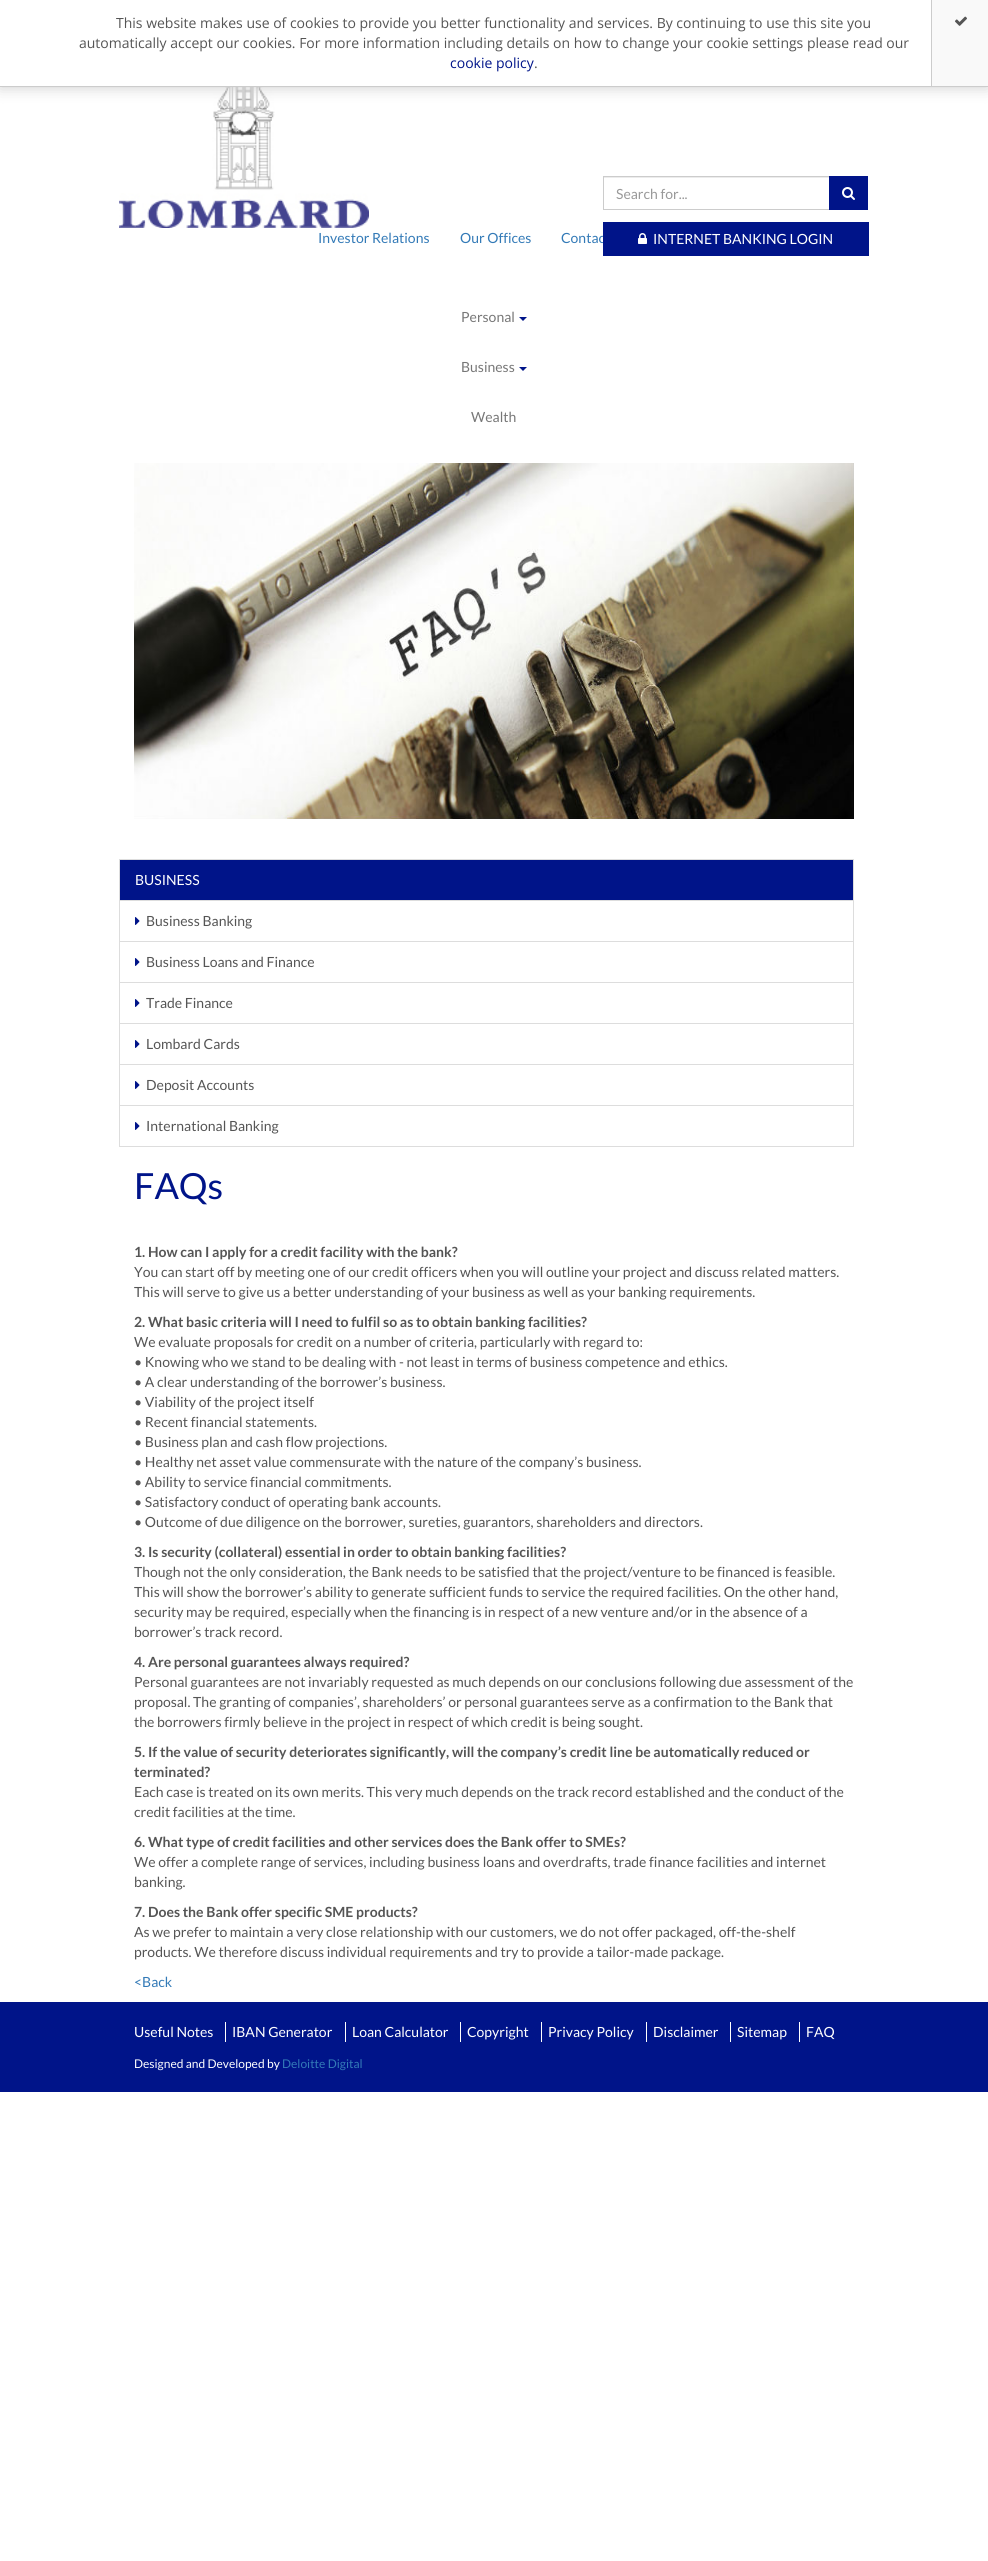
#include <cairo/cairo.h>
#include <math.h>
#include <stddef.h>

typedef struct { double x, y; const char *s; } line_t;
typedef struct { double x, y, w, h; unsigned color; } box_t;
static cairo_t *cr;

static void rgb(unsigned color)
{
	cairo_set_source_rgb(cr, (color >> 16) / 255.0, (color >> 8 & 255) / 255.0, (color & 255) / 255.0);
}

static void rrect(double x, double y, double w, double h, double r)
{
	cairo_new_sub_path(cr);
	cairo_arc(cr, x + w - r, y + h - r, r, 0, M_PI / 2);
	cairo_arc(cr, x + r, y + h - r, r, M_PI / 2, M_PI);
	cairo_arc(cr, x + r, y + r, r, M_PI, 1.5 * M_PI);
	cairo_arc(cr, x + w - r, y + r, r, 1.5 * M_PI, 2 * M_PI);
	cairo_close_path(cr);
}

static void soft_shadow(double x, double y, double w, double h, double r, double blur, double alpha)
{
	cairo_push_group_with_content(cr, CAIRO_CONTENT_ALPHA);
	cairo_set_operator(cr, CAIRO_OPERATOR_SOURCE);
	for (int i = 15; i >= -15 && fmin(w, h) + blur * i / 3 > 0; i -= 2) {
		double e = blur * i / 6;
		cairo_set_source_rgba(cr, 0, 0, 0, alpha * erfc((i - 1) / 8.5) / 2);
		rrect(x - e, y - e, w + 2 * e, h + 2 * e, fmax(0, fmin(r + e + blur * .6, fmin(w, h) / 2 + e)));
		cairo_fill(cr);
	}
	cairo_pattern_t *soft = cairo_pop_group(cr);
	cairo_mask(cr, soft);
	cairo_pattern_destroy(soft);
}

static void image(const char *path, double x, double y, double w, double h)
{
	cairo_surface_t *image = cairo_image_surface_create_from_png(path);
	cairo_save(cr);
	cairo_set_source_surface(cr, image, x, y);
	cairo_rectangle(cr, x, y, w, h);
	cairo_fill(cr);
	cairo_restore(cr);
	cairo_surface_destroy(image);
}

int main(void) {
	cairo_surface_t *surface = cairo_image_surface_create(CAIRO_FORMAT_RGB24, 988, 2561);
	cr = cairo_create(surface);
	cairo_font_options_t *options = cairo_font_options_create();
	cairo_font_options_set_hint_metrics(options, CAIRO_HINT_METRICS_OFF);
	cairo_font_options_set_hint_style(options, CAIRO_HINT_STYLE_NONE);
	cairo_set_font_options(cr, options);
	cairo_set_miter_limit(cr, 4);
	rgb(0xffffff);
	cairo_paint(cr);
	image("img/2.png", 119, 87, 250, 141);
	rgb(0xcccccc);
	soft_shadow(0, 0, 988, 87, 0, 7.5, 1);
	{
		static const box_t items[] = {
			{0, 0, 931, 86, 0xffffff},
			{0, 86, 988, 1, 0xcccccc},
			{932, 0, 56, 86, 0xf9f9f9},
			{931, 0, 1, 86, 0xcccccc},
		};
		for (size_t i = 0; i < sizeof items / sizeof *items; i++) {
			rgb(items[i].color);
			cairo_rectangle(cr, items[i].x, items[i].y, items[i].w, items[i].h);
			cairo_fill(cr);
		}
	}
	image("img/1.png", 955, 16, 12, 10);
	rgb(0xececec);
	cairo_rectangle(cr, 604, 177, 225, 1);
	cairo_fill(cr);
	cairo_rectangle(cr, 603.5, 176.5, 226, 33);
	rgb(0xcccccc);
	cairo_set_line_width(cr, 1);
	cairo_stroke(cr);
	rgb(0x001489);
	cairo_rectangle(cr, 829, 176, 39, 34);
	cairo_fill(cr);
	image("img/3.png", 842, 187, 13, 13);
	cairo_new_path(cr);
	cairo_move_to(cr, 519, 317);
	cairo_line_to(cr, 527, 317);
	cairo_line_to(cr, 523, 321);
	cairo_close_path(cr);
	cairo_fill(cr);
	cairo_new_path(cr);
	cairo_move_to(cr, 519, 367);
	cairo_line_to(cr, 527, 367);
	cairo_line_to(cr, 523, 371);
	cairo_close_path(cr);
	cairo_fill(cr);
	image("img/5.png", 134, 463, 720, 356);
	cairo_rectangle(cr, 119.5, 859.5, 734, 41);
	cairo_fill_preserve(cr);
	rgb(0xdddddd);
	cairo_stroke(cr);
	cairo_rectangle(cr, 119.5, 900.5, 734, 41);
	cairo_stroke(cr);
	image("img/6.png", 135, 917, 5, 8);
	cairo_rectangle(cr, 119.5, 941.5, 734, 41);
	cairo_stroke(cr);
	image("img/6.png", 135, 958, 5, 8);
	cairo_rectangle(cr, 119.5, 982.5, 734, 41);
	cairo_stroke(cr);
	image("img/6.png", 135, 999, 5, 8);
	cairo_rectangle(cr, 119.5, 1023.5, 734, 41);
	cairo_stroke(cr);
	image("img/6.png", 135, 1040, 5, 8);
	cairo_rectangle(cr, 119.5, 1064.5, 734, 41);
	cairo_stroke(cr);
	image("img/6.png", 135, 1081, 5, 8);
	cairo_rectangle(cr, 119.5, 1105.5, 734, 41);
	cairo_stroke(cr);
	image("img/6.png", 135, 1122, 5, 8);
	{
		static const box_t items[] = {
			{0, 2002, 988, 90, 0x001489},
			{225, 2022, 1, 20, 0xffffff},
			{345, 2022, 1, 20, 0xffffff},
			{460, 2022, 1, 20, 0xffffff},
			{541, 2022, 1, 20, 0xffffff},
			{646, 2022, 1, 20, 0xffffff},
			{730, 2022, 1, 20, 0xffffff},
			{799, 2022, 1, 20, 0xffffff},
		};
		for (size_t i = 0; i < sizeof items / sizeof *items; i++) {
			rgb(items[i].color);
			cairo_rectangle(cr, items[i].x, items[i].y, items[i].w, items[i].h);
			cairo_fill(cr);
		}
	}
	cairo_select_font_face(cr, "Open Sans", CAIRO_FONT_SLANT_NORMAL, CAIRO_FONT_WEIGHT_NORMAL);
	cairo_set_font_size(cr, 14);
	rgb(0x555555);
	cairo_move_to(cr, 116, 28);
	cairo_show_text(cr, "This website makes use of cookies to provide you better functionality and services. By continuing to use this site you");
	cairo_move_to(cr, 79, 48);
	cairo_show_text(cr, "automatically accept our cookies. For more information including details on how to change your cookie settings please read our");
	rgb(0x001489);
	cairo_move_to(cr, 450, 68);
	cairo_show_text(cr, "cookie policy");
	rgb(0x555555);
	cairo_move_to(cr, 534, 68);
	cairo_show_text(cr, ".");
	cairo_select_font_face(cr, "Lato", CAIRO_FONT_SLANT_NORMAL, CAIRO_FONT_WEIGHT_NORMAL);
	rgb(0x337ab7);
	{
		static const line_t items[] = {
			{318, 243, "Investor Relations"},
			{460, 243, "Our Offices"},
			{561, 243, "Contac"},
		};
		for (size_t i = 0; i < sizeof items / sizeof *items; i++) {
			cairo_move_to(cr, items[i].x, items[i].y);
			cairo_show_text(cr, items[i].s);
		}
	}
	rgb(0x999999);
	cairo_move_to(cr, 616, 199);
	cairo_show_text(cr, "Search for...");
	rgb(0x001489);
	cairo_rectangle(cr, 603, 222, 266, 34);
	cairo_fill(cr);
	image("img/4.png", 638, 233, 9, 11);
	rgb(0xffffff);
	cairo_move_to(cr, 653, 244);
	cairo_show_text(cr, "INTERNET BANKING LOGIN");
	rgb(0x777777);
	{
		static const line_t items[] = {
			{461, 322, "Personal"},
			{461, 372, "Business"},
			{471, 422, "Wealth"},
		};
		for (size_t i = 0; i < sizeof items / sizeof *items; i++) {
			cairo_move_to(cr, items[i].x, items[i].y);
			cairo_show_text(cr, items[i].s);
		}
	}
	rgb(0xffffff);
	cairo_move_to(cr, 135, 885);
	cairo_show_text(cr, "BUSINESS");
	rgb(0x555555);
	{
		static const line_t items[] = {
			{146, 926, "Business Banking"},
			{146, 967, "Business Loans and Finance"},
			{146, 1008, "Trade Finance"},
			{146, 1049, "Lombard Cards"},
			{146, 1090, "Deposit Accounts"},
			{146, 1131, "International Banking"},
		};
		for (size_t i = 0; i < sizeof items / sizeof *items; i++) {
			cairo_move_to(cr, items[i].x, items[i].y);
			cairo_show_text(cr, items[i].s);
		}
	}
	cairo_set_font_size(cr, 36);
	rgb(0x001489);
	cairo_move_to(cr, 134, 1199);
	cairo_show_text(cr, "FAQs");
	cairo_select_font_face(cr, "Lato", CAIRO_FONT_SLANT_NORMAL, CAIRO_FONT_WEIGHT_BOLD);
	cairo_set_font_size(cr, 14);
	rgb(0x555555);
	cairo_move_to(cr, 134, 1257);
	cairo_show_text(cr, "1. How can I apply for a credit facility with the bank?");
	cairo_select_font_face(cr, "Lato", CAIRO_FONT_SLANT_NORMAL, CAIRO_FONT_WEIGHT_NORMAL);
	cairo_move_to(cr, 134, 1277);
	cairo_show_text(cr, "You can start off by meeting one of our credit officers when you will outline your project and discuss related matters.");
	cairo_move_to(cr, 134, 1297);
	cairo_show_text(cr, "This will serve to give us a better understanding of your business as well as your banking requirements.");
	cairo_select_font_face(cr, "Lato", CAIRO_FONT_SLANT_NORMAL, CAIRO_FONT_WEIGHT_BOLD);
	cairo_move_to(cr, 134, 1327);
	cairo_show_text(cr, "2. What basic criteria will I need to fulfil so as to obtain banking facilities?");
	cairo_select_font_face(cr, "Lato", CAIRO_FONT_SLANT_NORMAL, CAIRO_FONT_WEIGHT_NORMAL);
	{
		static const line_t items[] = {
			{134, 1347, "We evaluate proposals for credit on a number of criteria, particularly with regard to:"},
			{134, 1367, "• Knowing who we stand to be dealing with - not least in terms of business competence and ethics."},
			{134, 1387, "• A clear understanding of the borrower’s business."},
			{134, 1407, "• Viability of the project itself"},
			{134, 1427, "• Recent financial statements."},
			{134, 1447, "• Business plan and cash flow projections."},
			{134, 1467, "• Healthy net asset value commensurate with the nature of the company’s business."},
			{134, 1487, "• Ability to service financial commitments."},
			{134, 1507, "• Satisfactory conduct of operating bank accounts."},
			{134, 1527, "• Outcome of due diligence on the borrower, sureties, guarantors, shareholders and directors."},
		};
		for (size_t i = 0; i < sizeof items / sizeof *items; i++) {
			cairo_move_to(cr, items[i].x, items[i].y);
			cairo_show_text(cr, items[i].s);
		}
	}
	cairo_select_font_face(cr, "Lato", CAIRO_FONT_SLANT_NORMAL, CAIRO_FONT_WEIGHT_BOLD);
	cairo_move_to(cr, 134, 1557);
	cairo_show_text(cr, "3. Is security (collateral) essential in order to obtain banking facilities?");
	cairo_select_font_face(cr, "Lato", CAIRO_FONT_SLANT_NORMAL, CAIRO_FONT_WEIGHT_NORMAL);
	{
		static const line_t items[] = {
			{134, 1577, "Though not the only consideration, the Bank needs to be satisfied that the project/venture to be financed is feasible."},
			{134, 1597, "This will show the borrower’s ability to generate sufficient funds to service the required facilities. On the other hand,"},
			{134, 1617, "security may be required, especially when the financing is in respect of a new venture and/or in the absence of a"},
			{134, 1637, "borrower’s track record."},
		};
		for (size_t i = 0; i < sizeof items / sizeof *items; i++) {
			cairo_move_to(cr, items[i].x, items[i].y);
			cairo_show_text(cr, items[i].s);
		}
	}
	cairo_select_font_face(cr, "Lato", CAIRO_FONT_SLANT_NORMAL, CAIRO_FONT_WEIGHT_BOLD);
	cairo_move_to(cr, 134, 1667);
	cairo_show_text(cr, "4. Are personal guarantees always required?");
	cairo_select_font_face(cr, "Lato", CAIRO_FONT_SLANT_NORMAL, CAIRO_FONT_WEIGHT_NORMAL);
	{
		static const line_t items[] = {
			{134, 1687, "Personal guarantees are not invariably requested as much depends on our conclusions following due assessment of the"},
			{134, 1707, "proposal. The granting of companies’, shareholders’ or personal guarantees serve as a confirmation to the Bank that"},
			{134, 1727, "the borrowers firmly believe in the project in respect of which credit is being sought."},
		};
		for (size_t i = 0; i < sizeof items / sizeof *items; i++) {
			cairo_move_to(cr, items[i].x, items[i].y);
			cairo_show_text(cr, items[i].s);
		}
	}
	cairo_select_font_face(cr, "Lato", CAIRO_FONT_SLANT_NORMAL, CAIRO_FONT_WEIGHT_BOLD);
	cairo_move_to(cr, 134, 1757);
	cairo_show_text(cr, "5. If the value of security deteriorates significantly, will the company’s credit line be automatically reduced or");
	cairo_move_to(cr, 134, 1777);
	cairo_show_text(cr, "terminated?");
	cairo_select_font_face(cr, "Lato", CAIRO_FONT_SLANT_NORMAL, CAIRO_FONT_WEIGHT_NORMAL);
	cairo_move_to(cr, 134, 1797);
	cairo_show_text(cr, "Each case is treated on its own merits. This very much depends on the track record established and the conduct of the");
	cairo_move_to(cr, 134, 1817);
	cairo_show_text(cr, "credit facilities at the time.");
	cairo_select_font_face(cr, "Lato", CAIRO_FONT_SLANT_NORMAL, CAIRO_FONT_WEIGHT_BOLD);
	cairo_move_to(cr, 134, 1847);
	cairo_show_text(cr, "6. What type of credit facilities and other services does the Bank offer to SMEs?");
	cairo_select_font_face(cr, "Lato", CAIRO_FONT_SLANT_NORMAL, CAIRO_FONT_WEIGHT_NORMAL);
	cairo_move_to(cr, 134, 1867);
	cairo_show_text(cr, "We offer a complete range of services, including business loans and overdrafts, trade finance facilities and internet");
	cairo_move_to(cr, 134, 1887);
	cairo_show_text(cr, "banking.");
	cairo_select_font_face(cr, "Lato", CAIRO_FONT_SLANT_NORMAL, CAIRO_FONT_WEIGHT_BOLD);
	cairo_move_to(cr, 134, 1917);
	cairo_show_text(cr, "7. Does the Bank offer specific SME products?");
	cairo_select_font_face(cr, "Lato", CAIRO_FONT_SLANT_NORMAL, CAIRO_FONT_WEIGHT_NORMAL);
	cairo_move_to(cr, 134, 1937);
	cairo_show_text(cr, "As we prefer to maintain a very close relationship with our customers, we do not offer packaged, off-the-shelf");
	cairo_move_to(cr, 134, 1957);
	cairo_show_text(cr, "products. We therefore discuss individual requirements and try to provide a tailor-made package.");
	rgb(0x337ab7);
	cairo_move_to(cr, 134, 1987);
	cairo_show_text(cr, "<Back");
	rgb(0xffffff);
	{
		static const line_t items[] = {
			{134, 2037, "Useful Notes"},
			{232, 2037, "IBAN Generator"},
			{352, 2037, "Loan Calculator"},
			{467, 2037, "Copyright"},
			{548, 2037, "Privacy Policy"},
			{653, 2037, "Disclaimer"},
			{737, 2037, "Sitemap"},
			{806, 2037, "FAQ"},
		};
		for (size_t i = 0; i < sizeof items / sizeof *items; i++) {
			cairo_move_to(cr, items[i].x, items[i].y);
			cairo_show_text(cr, items[i].s);
		}
	}
	cairo_set_font_size(cr, 12);
	cairo_move_to(cr, 134, 2068);
	cairo_show_text(cr, "Designed and Developed by");
	rgb(0x337ab7);
	cairo_move_to(cr, 282, 2068);
	cairo_show_text(cr, "Deloitte Digital");
	cairo_surface_write_to_png(surface, "page.png");
	cairo_font_options_destroy(options);
	cairo_destroy(cr);
	cairo_surface_destroy(surface);
	return 0;
}
